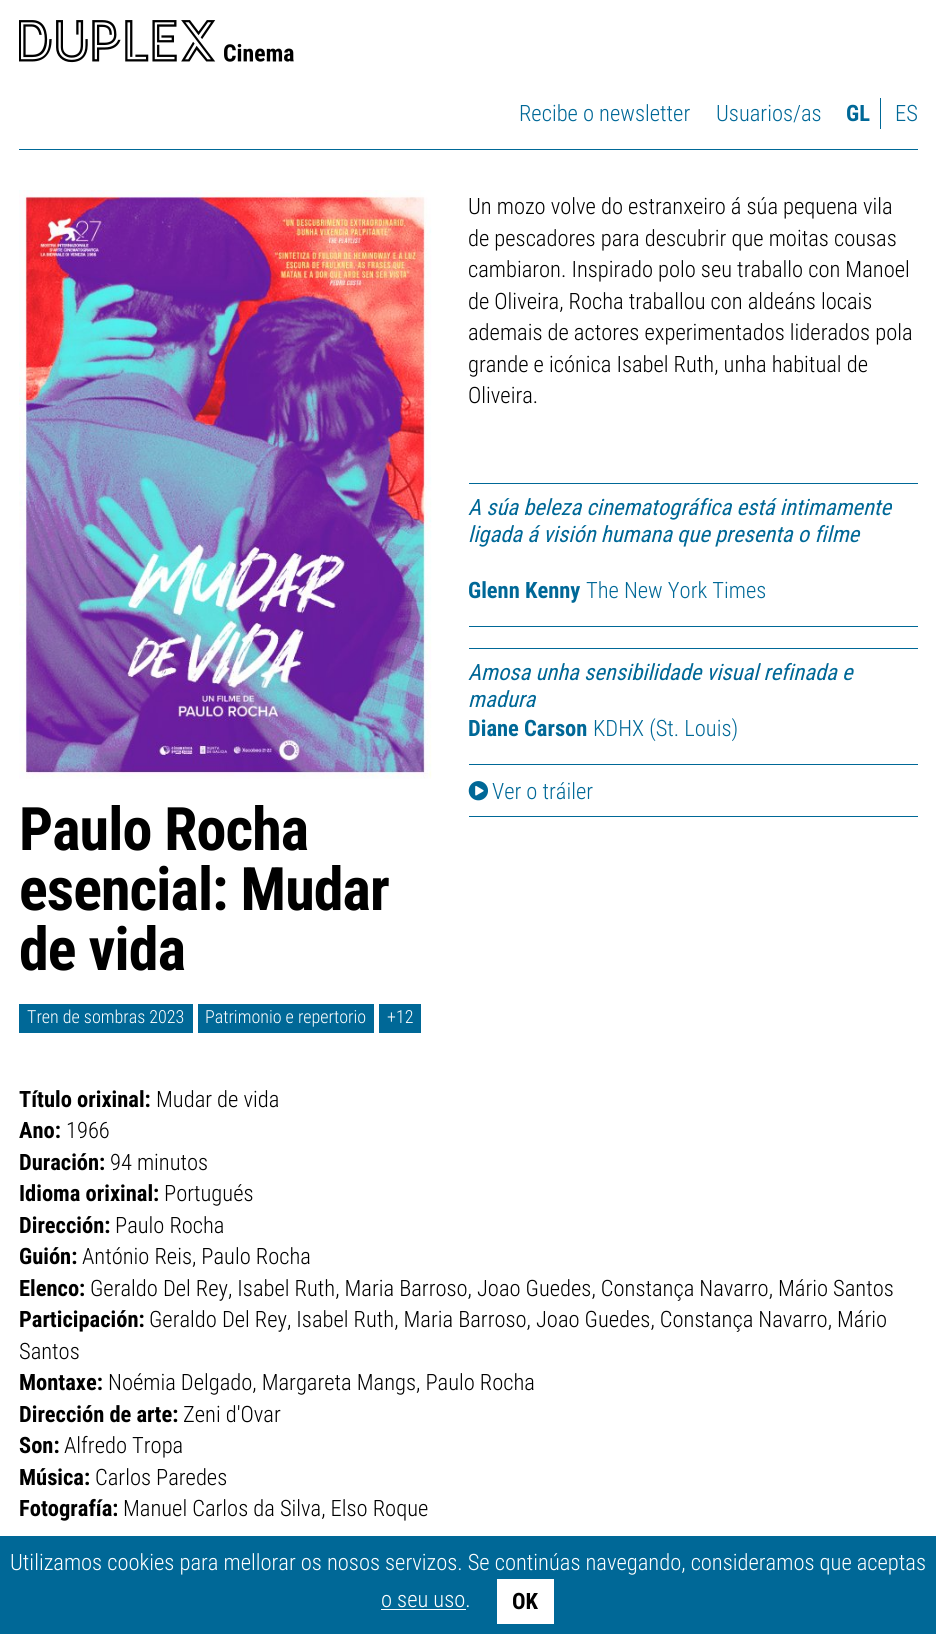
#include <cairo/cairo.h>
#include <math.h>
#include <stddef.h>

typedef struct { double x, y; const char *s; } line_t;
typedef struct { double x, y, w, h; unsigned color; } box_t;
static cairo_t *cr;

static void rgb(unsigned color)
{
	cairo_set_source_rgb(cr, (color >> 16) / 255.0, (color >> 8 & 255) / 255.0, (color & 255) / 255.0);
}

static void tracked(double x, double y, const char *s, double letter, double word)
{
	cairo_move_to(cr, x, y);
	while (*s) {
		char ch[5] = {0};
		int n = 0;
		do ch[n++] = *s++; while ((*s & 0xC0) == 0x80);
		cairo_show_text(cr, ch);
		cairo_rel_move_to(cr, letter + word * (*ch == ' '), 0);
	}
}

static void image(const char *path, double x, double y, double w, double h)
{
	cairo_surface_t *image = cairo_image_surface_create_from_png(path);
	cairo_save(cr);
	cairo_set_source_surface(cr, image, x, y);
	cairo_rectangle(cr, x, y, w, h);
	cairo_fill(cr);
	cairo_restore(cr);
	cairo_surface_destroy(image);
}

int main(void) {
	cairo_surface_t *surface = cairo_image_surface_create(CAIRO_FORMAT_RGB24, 936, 1634);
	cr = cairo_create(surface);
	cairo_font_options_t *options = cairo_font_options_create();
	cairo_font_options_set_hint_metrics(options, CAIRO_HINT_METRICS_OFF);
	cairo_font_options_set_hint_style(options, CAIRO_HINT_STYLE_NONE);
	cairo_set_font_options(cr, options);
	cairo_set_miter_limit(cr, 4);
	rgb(0xffffff);
	cairo_paint(cr);
	rgb(0x006897);
	cairo_rectangle(cr, 19, 149, 899, 1);
	cairo_fill(cr);
	image("img/1.png", 19, 20, 275, 43);
	{
		static const box_t items[] = {
			{880, 98, 1, 31, 0x006897},
			{469, 483, 449, 1, 0x006897},
			{469, 626, 449, 1, 0x006897},
			{469, 648, 449, 1, 0x006897},
			{469, 764, 449, 1, 0x006897},
			{469, 816, 449, 1, 0x006897},
		};
		for (size_t i = 0; i < sizeof items / sizeof *items; i++) {
			rgb(items[i].color);
			cairo_rectangle(cr, items[i].x, items[i].y, items[i].w, items[i].h);
			cairo_fill(cr);
		}
	}
	image("img/2.png", 468, 781, 20, 20);
	image("img/3.png", 19, 190, 413, 589);
	{
		static const box_t items[] = {
			{19, 1004, 174, 29, 0x006897},
			{198, 1004, 176, 29, 0x006897},
			{379, 1004, 42, 29, 0x006897},
			{0, 1536, 936, 98, 0x006897},
			{381, 1609, 85, 1, 0xffffff},
			{497, 1579, 57, 45, 0xffffff},
		};
		for (size_t i = 0; i < sizeof items / sizeof *items; i++) {
			rgb(items[i].color);
			cairo_rectangle(cr, items[i].x, items[i].y, items[i].w, items[i].h);
			cairo_fill(cr);
		}
	}
	cairo_select_font_face(cr, "Roboto Condensed Light", CAIRO_FONT_SLANT_NORMAL, CAIRO_FONT_WEIGHT_NORMAL);
	cairo_set_font_size(cr, 22.5);
	rgb(0x006897);
	cairo_move_to(cr, 519, 121);
	cairo_show_text(cr, "Recibe o newsletter");
	cairo_move_to(cr, 716, 121);
	cairo_show_text(cr, "Usuarios/as");
	cairo_select_font_face(cr, "Roboto Condensed", CAIRO_FONT_SLANT_NORMAL, CAIRO_FONT_WEIGHT_BOLD);
	cairo_move_to(cr, 846, 121);
	cairo_show_text(cr, "GL");
	cairo_select_font_face(cr, "Roboto Condensed Light", CAIRO_FONT_SLANT_NORMAL, CAIRO_FONT_WEIGHT_NORMAL);
	cairo_move_to(cr, 895, 121);
	cairo_show_text(cr, "ES");
	rgb(0x000000);
	{
		static const line_t items[] = {
			{468, 214, "Un mozo volve do estranxeiro á súa pequena vila"},
			{468, 246, "de pescadores para descubrir que moitas cousas"},
			{468, 277, "cambiaron. Inspirado polo seu traballo con Manoel"},
			{468, 309, "de Oliveira, Rocha traballou con aldeáns locais"},
			{468, 340, "ademais de actores experimentados liderados pola"},
			{468, 372, "grande e icónica Isabel Ruth, unha habitual de"},
			{468, 403, "Oliveira."},
		};
		for (size_t i = 0; i < sizeof items / sizeof *items; i++) {
			cairo_move_to(cr, items[i].x, items[i].y);
			cairo_show_text(cr, items[i].s);
		}
	}
	cairo_select_font_face(cr, "Roboto Condensed", CAIRO_FONT_SLANT_ITALIC, CAIRO_FONT_WEIGHT_NORMAL);
	rgb(0x006897);
	cairo_move_to(cr, 468, 515);
	cairo_show_text(cr, "A súa beleza cinematográfica está intimamente");
	cairo_move_to(cr, 468, 542);
	cairo_show_text(cr, "ligada á visión humana que presenta o filme");
	cairo_select_font_face(cr, "Roboto Condensed", CAIRO_FONT_SLANT_NORMAL, CAIRO_FONT_WEIGHT_BOLD);
	cairo_move_to(cr, 468, 598);
	cairo_show_text(cr, "Glenn Kenny");
	cairo_select_font_face(cr, "Roboto Condensed Light", CAIRO_FONT_SLANT_NORMAL, CAIRO_FONT_WEIGHT_NORMAL);
	cairo_move_to(cr, 586, 598);
	cairo_show_text(cr, "The New York Times");
	cairo_select_font_face(cr, "Roboto Condensed", CAIRO_FONT_SLANT_ITALIC, CAIRO_FONT_WEIGHT_NORMAL);
	cairo_move_to(cr, 468, 680);
	cairo_show_text(cr, "Amosa unha sensibilidade visual refinada e");
	cairo_move_to(cr, 468, 707);
	cairo_show_text(cr, "madura");
	cairo_select_font_face(cr, "Roboto Condensed", CAIRO_FONT_SLANT_NORMAL, CAIRO_FONT_WEIGHT_BOLD);
	cairo_move_to(cr, 468, 736);
	cairo_show_text(cr, "Diane Carson");
	cairo_select_font_face(cr, "Roboto Condensed Light", CAIRO_FONT_SLANT_NORMAL, CAIRO_FONT_WEIGHT_NORMAL);
	cairo_move_to(cr, 593, 736);
	cairo_show_text(cr, "KDHX (St. Louis)");
	cairo_move_to(cr, 492, 799);
	cairo_show_text(cr, "Ver o tráiler");
	cairo_select_font_face(cr, "Roboto Condensed", CAIRO_FONT_SLANT_NORMAL, CAIRO_FONT_WEIGHT_BOLD);
	cairo_set_font_size(cr, 60);
	rgb(0x000000);
	{
		static const line_t items[] = {
			{19, 850, "Paulo Rocha"},
			{19, 910, "esencial: Mudar"},
			{19, 970, "de vida"},
		};
		for (size_t i = 0; i < sizeof items / sizeof *items; i++) {
			tracked(items[i].x, items[i].y, items[i].s, -0.9, 0);
		}
	}
	cairo_select_font_face(cr, "Roboto Condensed Light", CAIRO_FONT_SLANT_NORMAL, CAIRO_FONT_WEIGHT_NORMAL);
	cairo_set_font_size(cr, 18);
	rgb(0xffffff);
	{
		static const line_t items[] = {
			{27, 1023, "Tren de sombras 2023"},
			{205, 1023, "Patrimonio e repertorio"},
			{387, 1023, "+12"},
		};
		for (size_t i = 0; i < sizeof items / sizeof *items; i++) {
			cairo_move_to(cr, items[i].x, items[i].y);
			cairo_show_text(cr, items[i].s);
		}
	}
	cairo_select_font_face(cr, "Roboto Condensed", CAIRO_FONT_SLANT_NORMAL, CAIRO_FONT_WEIGHT_BOLD);
	cairo_set_font_size(cr, 22.5);
	rgb(0x000000);
	cairo_move_to(cr, 19, 1107);
	cairo_show_text(cr, "Título orixinal:");
	cairo_select_font_face(cr, "Roboto Condensed Light", CAIRO_FONT_SLANT_NORMAL, CAIRO_FONT_WEIGHT_NORMAL);
	cairo_move_to(cr, 156, 1107);
	cairo_show_text(cr, "Mudar de vida");
	cairo_select_font_face(cr, "Roboto Condensed", CAIRO_FONT_SLANT_NORMAL, CAIRO_FONT_WEIGHT_BOLD);
	cairo_move_to(cr, 19, 1138);
	cairo_show_text(cr, "Ano:");
	cairo_select_font_face(cr, "Roboto Condensed Light", CAIRO_FONT_SLANT_NORMAL, CAIRO_FONT_WEIGHT_NORMAL);
	cairo_move_to(cr, 66, 1138);
	cairo_show_text(cr, "1966");
	cairo_select_font_face(cr, "Roboto Condensed", CAIRO_FONT_SLANT_NORMAL, CAIRO_FONT_WEIGHT_BOLD);
	cairo_move_to(cr, 19, 1170);
	cairo_show_text(cr, "Duración:");
	cairo_select_font_face(cr, "Roboto Condensed Light", CAIRO_FONT_SLANT_NORMAL, CAIRO_FONT_WEIGHT_NORMAL);
	cairo_move_to(cr, 110, 1170);
	cairo_show_text(cr, "94 minutos");
	cairo_select_font_face(cr, "Roboto Condensed", CAIRO_FONT_SLANT_NORMAL, CAIRO_FONT_WEIGHT_BOLD);
	cairo_move_to(cr, 19, 1201);
	cairo_show_text(cr, "Idioma orixinal:");
	cairo_select_font_face(cr, "Roboto Condensed Light", CAIRO_FONT_SLANT_NORMAL, CAIRO_FONT_WEIGHT_NORMAL);
	cairo_move_to(cr, 164, 1201);
	cairo_show_text(cr, "Portugués");
	cairo_select_font_face(cr, "Roboto Condensed", CAIRO_FONT_SLANT_NORMAL, CAIRO_FONT_WEIGHT_BOLD);
	cairo_move_to(cr, 19, 1233);
	cairo_show_text(cr, "Dirección:");
	cairo_select_font_face(cr, "Roboto Condensed Light", CAIRO_FONT_SLANT_NORMAL, CAIRO_FONT_WEIGHT_NORMAL);
	cairo_move_to(cr, 115, 1233);
	cairo_show_text(cr, "Paulo Rocha");
	cairo_select_font_face(cr, "Roboto Condensed", CAIRO_FONT_SLANT_NORMAL, CAIRO_FONT_WEIGHT_BOLD);
	cairo_move_to(cr, 19, 1264);
	cairo_show_text(cr, "Guión:");
	cairo_select_font_face(cr, "Roboto Condensed Light", CAIRO_FONT_SLANT_NORMAL, CAIRO_FONT_WEIGHT_NORMAL);
	cairo_move_to(cr, 82, 1264);
	cairo_show_text(cr, "António Reis, Paulo Rocha");
	cairo_select_font_face(cr, "Roboto Condensed", CAIRO_FONT_SLANT_NORMAL, CAIRO_FONT_WEIGHT_BOLD);
	cairo_move_to(cr, 19, 1296);
	cairo_show_text(cr, "Elenco:");
	cairo_select_font_face(cr, "Roboto Condensed Light", CAIRO_FONT_SLANT_NORMAL, CAIRO_FONT_WEIGHT_NORMAL);
	cairo_move_to(cr, 90, 1296);
	cairo_show_text(cr, "Geraldo Del Rey, Isabel Ruth, Maria Barroso, Joao Guedes, Constança Navarro, Mário Santos");
	cairo_select_font_face(cr, "Roboto Condensed", CAIRO_FONT_SLANT_NORMAL, CAIRO_FONT_WEIGHT_BOLD);
	cairo_move_to(cr, 19, 1327);
	cairo_show_text(cr, "Participación:");
	cairo_select_font_face(cr, "Roboto Condensed Light", CAIRO_FONT_SLANT_NORMAL, CAIRO_FONT_WEIGHT_NORMAL);
	cairo_move_to(cr, 149, 1327);
	cairo_show_text(cr, "Geraldo Del Rey, Isabel Ruth, Maria Barroso, Joao Guedes, Constança Navarro, Mário");
	cairo_move_to(cr, 19, 1359);
	cairo_show_text(cr, "Santos");
	cairo_select_font_face(cr, "Roboto Condensed", CAIRO_FONT_SLANT_NORMAL, CAIRO_FONT_WEIGHT_BOLD);
	cairo_move_to(cr, 19, 1390);
	cairo_show_text(cr, "Montaxe:");
	cairo_select_font_face(cr, "Roboto Condensed Light", CAIRO_FONT_SLANT_NORMAL, CAIRO_FONT_WEIGHT_NORMAL);
	cairo_move_to(cr, 108, 1390);
	cairo_show_text(cr, "Noémia Delgado, Margareta Mangs, Paulo Rocha");
	cairo_select_font_face(cr, "Roboto Condensed", CAIRO_FONT_SLANT_NORMAL, CAIRO_FONT_WEIGHT_BOLD);
	cairo_move_to(cr, 19, 1422);
	cairo_show_text(cr, "Dirección de arte:");
	cairo_select_font_face(cr, "Roboto Condensed Light", CAIRO_FONT_SLANT_NORMAL, CAIRO_FONT_WEIGHT_NORMAL);
	cairo_move_to(cr, 183, 1422);
	cairo_show_text(cr, "Zeni d'Ovar");
	cairo_select_font_face(cr, "Roboto Condensed", CAIRO_FONT_SLANT_NORMAL, CAIRO_FONT_WEIGHT_BOLD);
	cairo_move_to(cr, 19, 1453);
	cairo_show_text(cr, "Son:");
	cairo_select_font_face(cr, "Roboto Condensed Light", CAIRO_FONT_SLANT_NORMAL, CAIRO_FONT_WEIGHT_NORMAL);
	cairo_move_to(cr, 64, 1453);
	cairo_show_text(cr, "Alfredo Tropa");
	cairo_select_font_face(cr, "Roboto Condensed", CAIRO_FONT_SLANT_NORMAL, CAIRO_FONT_WEIGHT_BOLD);
	cairo_move_to(cr, 19, 1485);
	cairo_show_text(cr, "Música:");
	cairo_select_font_face(cr, "Roboto Condensed Light", CAIRO_FONT_SLANT_NORMAL, CAIRO_FONT_WEIGHT_NORMAL);
	cairo_move_to(cr, 95, 1485);
	cairo_show_text(cr, "Carlos Paredes");
	cairo_select_font_face(cr, "Roboto Condensed", CAIRO_FONT_SLANT_NORMAL, CAIRO_FONT_WEIGHT_BOLD);
	cairo_move_to(cr, 19, 1516);
	cairo_show_text(cr, "Fotografía:");
	cairo_select_font_face(cr, "Roboto Condensed Light", CAIRO_FONT_SLANT_NORMAL, CAIRO_FONT_WEIGHT_NORMAL);
	cairo_move_to(cr, 123, 1516);
	cairo_show_text(cr, "Manuel Carlos da Silva, Elso Roque");
	rgb(0xffffff);
	cairo_move_to(cr, 10, 1570);
	cairo_show_text(cr, "Utilizamos cookies para mellorar os nosos servizos. Se continúas navegando, consideramos que aceptas");
	cairo_move_to(cr, 381, 1607);
	cairo_show_text(cr, "o seu uso.");
	cairo_select_font_face(cr, "Roboto Condensed", CAIRO_FONT_SLANT_NORMAL, CAIRO_FONT_WEIGHT_BOLD);
	rgb(0x000000);
	cairo_move_to(cr, 512, 1609);
	cairo_show_text(cr, "OK");
	cairo_surface_write_to_png(surface, "page.png");
	cairo_font_options_destroy(options);
	cairo_destroy(cr);
	cairo_surface_destroy(surface);
	return 0;
}
